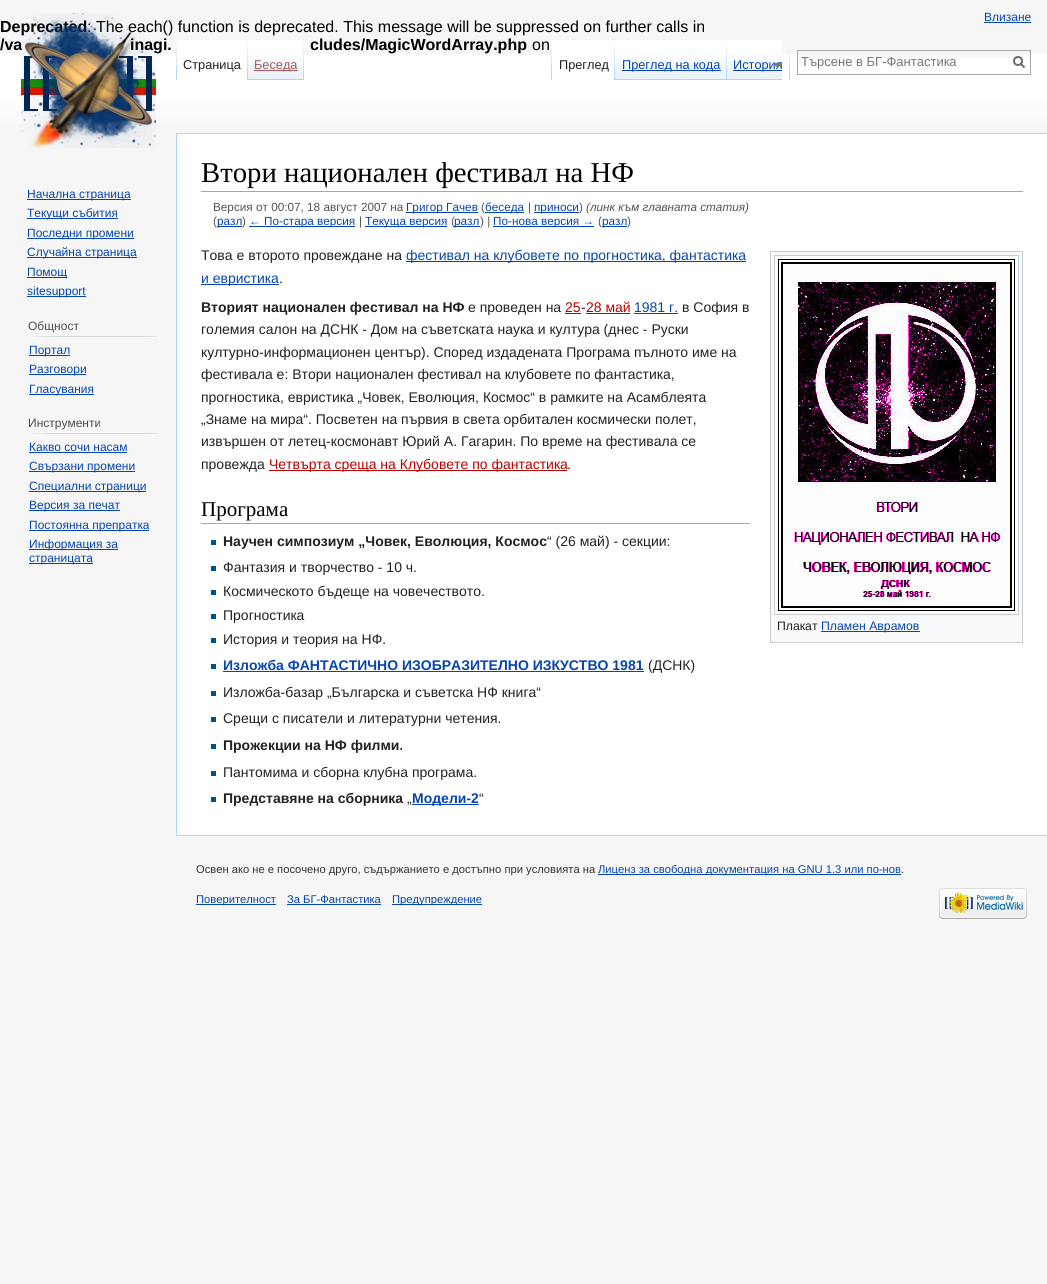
#include <cairo/cairo.h>
#include <math.h>
#include <stddef.h>

typedef struct { double x, y; const char *s; } line_t;
typedef struct { double x, y, w, h; unsigned color; } box_t;
static cairo_t *cr;

static void rgb(unsigned color)
{
	cairo_set_source_rgb(cr, (color >> 16) / 255.0, (color >> 8 & 255) / 255.0, (color & 255) / 255.0);
}

static void image(const char *path, double x, double y, double w, double h)
{
	cairo_surface_t *image = cairo_image_surface_create_from_png(path);
	cairo_save(cr);
	cairo_set_source_surface(cr, image, x, y);
	cairo_rectangle(cr, x, y, w, h);
	cairo_fill(cr);
	cairo_restore(cr);
	cairo_surface_destroy(image);
}

int main(void) {
	cairo_surface_t *surface = cairo_image_surface_create(CAIRO_FORMAT_RGB24, 1047, 1284);
	cr = cairo_create(surface);
	cairo_font_options_t *options = cairo_font_options_create();
	cairo_font_options_set_hint_metrics(options, CAIRO_HINT_METRICS_OFF);
	cairo_font_options_set_hint_style(options, CAIRO_HINT_STYLE_NONE);
	cairo_set_font_options(cr, options);
	cairo_set_miter_limit(cr, 4);
	cairo_pattern_t *gradient;
	rgb(0xf6f6f6);
	cairo_paint(cr);
	rgb(0x0645ad);
	cairo_rectangle(cr, 984, 22, 47, 1);
	cairo_fill(cr);
	gradient = cairo_pattern_create_linear(524, 54, 524, 134);
	cairo_pattern_add_color_stop_rgba(gradient, 0.5, 1, 1, 1, 1);
	cairo_pattern_add_color_stop_rgba(gradient, 1, 0.965, 0.965, 0.965, 1);
	cairo_set_source(cr, gradient);
	cairo_pattern_destroy(gradient);
	cairo_rectangle(cr, 0, 54, 1047, 69);
	cairo_fill(cr);
	image("img/1.png", 176, 40, 1, 40);
	rgb(0xffffff);
	cairo_rectangle(cr, 177, 40, 70, 14);
	cairo_fill(cr);
	image("img/1.png", 247, 40, 1, 40);
	image("img/2.png", 248, 40, 56, 40);
	image("img/3.png", 303, 40, 1, 39);
	rgb(0xa55858);
	cairo_rectangle(cr, 254, 70, 44, 1);
	cairo_fill(cr);
	image("img/1.png", 789, 40, 1, 40);
	image("img/4.png", 798, 51, 232, 8);
	cairo_rectangle(cr, 797.5, 50.5, 233, 24);
	rgb(0xaaaaaa);
	cairo_set_line_width(cr, 1);
	cairo_stroke(cr);
	cairo_new_path(cr);
	cairo_move_to(cr, 1024.5, 67.5);
	cairo_line_to(cr, 1020.5, 63.5);
	rgb(0x6c6c6c);
	cairo_set_line_width(cr, 2);
	cairo_stroke(cr);
	cairo_arc(cr, 1018, 61, 4, 0, 2 * M_PI);
	cairo_stroke(cr);
	image("img/1.png", 551, 40, 1, 40);
	rgb(0xffffff);
	cairo_rectangle(cr, 552, 40, 62, 14);
	cairo_fill(cr);
	image("img/1.png", 614, 40, 1, 40);
	image("img/5.png", 615, 40, 112, 40);
	image("img/3.png", 726, 40, 1, 39);
	rgb(0x0645ad);
	cairo_rectangle(cr, 622, 70, 99, 1);
	cairo_fill(cr);
	image("img/6.png", 727, 40, 55, 40);
	{
		static const box_t items[] = {
			{733, 70, 49, 1, 0x0645ad},
			{27, 199, 104, 1, 0x0645ad},
			{27, 218, 91, 1, 0x0645ad},
			{27, 238, 107, 1, 0x0645ad},
			{27, 257, 110, 1, 0x0645ad},
			{27, 277, 40, 1, 0x0645ad},
			{27, 296, 59, 1, 0x0645ad},
		};
		for (size_t i = 0; i < sizeof items / sizeof *items; i++) {
			rgb(items[i].color);
			cairo_rectangle(cr, items[i].x, items[i].y, items[i].w, items[i].h);
			cairo_fill(cr);
		}
	}
	image("img/8.png", 32, 336, 126, 1);
	{
		static const box_t items[] = {
			{29, 355, 41, 1, 0x0645ad},
			{29, 374, 57, 1, 0x0645ad},
			{29, 394, 65, 1, 0x0645ad},
		};
		for (size_t i = 0; i < sizeof items / sizeof *items; i++) {
			rgb(items[i].color);
			cairo_rectangle(cr, items[i].x, items[i].y, items[i].w, items[i].h);
			cairo_fill(cr);
		}
	}
	image("img/8.png", 32, 433, 126, 1);
	{
		static const box_t items[] = {
			{29, 452, 98, 1, 0x0645ad},
			{29, 471, 106, 1, 0x0645ad},
			{29, 491, 117, 1, 0x0645ad},
			{29, 510, 91, 1, 0x0645ad},
			{29, 530, 120, 1, 0x0645ad},
			{29, 549, 89, 1, 0x0645ad},
			{29, 563, 64, 1, 0x0645ad},
			{177, 134, 870, 701, 0xffffff},
			{176, 133, 871, 1, 0xa7d7f9},
			{176, 835, 871, 1, 0xa7d7f9},
			{176, 133, 1, 703, 0xa7d7f9},
			{201, 191, 822, 1, 0xa2a9b1},
			{406, 212, 72, 1, 0x0645ad},
			{534, 212, 45, 1, 0x0645ad},
			{217, 226, 25, 1, 0x0645ad},
			{249, 226, 106, 1, 0x0645ad},
			{365, 226, 82, 1, 0x0645ad},
			{493, 226, 101, 1, 0x0645ad},
			{602, 226, 25, 1, 0x0645ad},
			{406, 261, 340, 1, 0x0645ad},
			{201, 284, 78, 1, 0x0645ad},
			{565, 313, 16, 1, 0xba0000},
			{586, 313, 44, 1, 0xba0000},
			{634, 313, 44, 1, 0x0645ad},
			{269, 470, 298, 1, 0xba0000},
			{201, 523, 549, 1, 0xa2a9b1},
			{211, 540, 5, 5, 0x00528c},
			{211, 566, 5, 5, 0x00528c},
			{211, 590, 5, 5, 0x00528c},
			{211, 614, 5, 5, 0x00528c},
			{211, 638, 5, 5, 0x00528c},
		};
		for (size_t i = 0; i < sizeof items / sizeof *items; i++) {
			rgb(items[i].color);
			cairo_rectangle(cr, items[i].x, items[i].y, items[i].w, items[i].h);
			cairo_fill(cr);
		}
	}
	rgb(0xf8f9fa);
	cairo_rectangle(cr, 770.5, 251.5, 252, 391);
	cairo_fill_preserve(cr);
	rgb(0xc8ccd1);
	cairo_set_line_width(cr, 1);
	cairo_stroke(cr);
	rgb(0xffffff);
	cairo_rectangle(cr, 1015, 256, 3, 358);
	cairo_fill(cr);
	cairo_rectangle(cr, 774.5, 255.5, 244, 359);
	rgb(0xc8ccd1);
	cairo_stroke(cr);
	image("img/9.png", 775, 256, 240, 358);
	{
		static const box_t items[] = {
			{821, 631, 99, 1, 0x0645ad},
			{211, 664, 5, 5, 0x00528c},
			{223, 671, 421, 1, 0x0645ad},
			{211, 691, 5, 5, 0x00528c},
			{211, 717, 5, 5, 0x00528c},
			{211, 744, 5, 5, 0x00528c},
			{211, 771, 5, 5, 0x00528c},
			{211, 797, 5, 5, 0x00528c},
			{412, 804, 67, 1, 0x0645ad},
			{598, 874, 303, 1, 0x0645ad},
			{196, 904, 80, 1, 0x0645ad},
			{287, 904, 94, 1, 0x0645ad},
			{392, 904, 90, 1, 0x0645ad},
		};
		for (size_t i = 0; i < sizeof items / sizeof *items; i++) {
			rgb(items[i].color);
			cairo_rectangle(cr, items[i].x, items[i].y, items[i].w, items[i].h);
			cairo_fill(cr);
		}
	}
	image("img/10.png", 939, 888, 88, 31);
	cairo_select_font_face(cr, "Liberation Sans", CAIRO_FONT_SLANT_NORMAL, CAIRO_FONT_WEIGHT_NORMAL);
	cairo_set_font_size(cr, 12);
	cairo_move_to(cr, 984, 21);
	cairo_show_text(cr, "Влизане");
	cairo_set_font_size(cr, 12.75);
	rgb(0x222222);
	cairo_move_to(cr, 183, 69);
	cairo_show_text(cr, "Страница");
	rgb(0xa55858);
	cairo_move_to(cr, 254, 69);
	cairo_show_text(cr, "Беседа");
	cairo_set_font_size(cr, 13);
	rgb(0x72777d);
	cairo_move_to(cr, 801, 66);
	cairo_show_text(cr, "Търсене в БГ-Фантастика");
	cairo_set_font_size(cr, 12.75);
	rgb(0x222222);
	cairo_move_to(cr, 559, 69);
	cairo_show_text(cr, "Преглед");
	rgb(0x0645ad);
	cairo_move_to(cr, 622, 69);
	cairo_show_text(cr, "Преглед на кода");
	cairo_save(cr);
	cairo_rectangle(cr, 727, 40, 55, 40);
	cairo_clip(cr);
	cairo_move_to(cr, 733, 69);
	cairo_show_text(cr, "История");
	cairo_restore(cr);
	rgb(0x797979);
	cairo_new_path(cr);
	cairo_move_to(cr, 782.5, 63);
	cairo_line_to(cr, 777.5, 68);
	cairo_line_to(cr, 772.5, 63);
	cairo_close_path(cr);
	cairo_fill(cr);
	cairo_set_font_size(cr, 12);
	rgb(0x0645ad);
	{
		static const line_t items[] = {
			{27, 198, "Начална страница"},
			{27, 217, "Текущи събития"},
			{27, 237, "Последни промени"},
			{27, 256, "Случайна страница"},
			{27, 276, "Помощ"},
			{27, 295, "sitesupport"},
		};
		for (size_t i = 0; i < sizeof items / sizeof *items; i++) {
			cairo_move_to(cr, items[i].x, items[i].y);
			cairo_show_text(cr, items[i].s);
		}
	}
	rgb(0x4d4d4d);
	cairo_move_to(cr, 28, 330);
	cairo_show_text(cr, "Общност");
	rgb(0x0645ad);
	{
		static const line_t items[] = {
			{29, 354, "Портал"},
			{29, 373, "Разговори"},
			{29, 393, "Гласувания"},
		};
		for (size_t i = 0; i < sizeof items / sizeof *items; i++) {
			cairo_move_to(cr, items[i].x, items[i].y);
			cairo_show_text(cr, items[i].s);
		}
	}
	rgb(0x4d4d4d);
	cairo_move_to(cr, 28, 427);
	cairo_show_text(cr, "Инструменти");
	rgb(0x0645ad);
	{
		static const line_t items[] = {
			{29, 451, "Какво сочи насам"},
			{29, 470, "Свързани промени"},
			{29, 490, "Специални страници"},
			{29, 509, "Версия за печат"},
			{29, 529, "Постоянна препратка"},
			{29, 548, "Информация за"},
			{29, 562, "страницата"},
		};
		for (size_t i = 0; i < sizeof items / sizeof *items; i++) {
			cairo_move_to(cr, items[i].x, items[i].y);
			cairo_show_text(cr, items[i].s);
		}
	}
	cairo_select_font_face(cr, "Liberation Sans", CAIRO_FONT_SLANT_NORMAL, CAIRO_FONT_WEIGHT_BOLD);
	cairo_set_font_size(cr, 16);
	rgb(0x000000);
	cairo_move_to(cr, 0, 32);
	cairo_show_text(cr, "Deprecated");
	cairo_select_font_face(cr, "Liberation Sans", CAIRO_FONT_SLANT_NORMAL, CAIRO_FONT_WEIGHT_NORMAL);
	cairo_move_to(cr, 87, 32);
	cairo_show_text(cr, ": The each() function is deprecated. This message will be suppressed on further calls in");
	cairo_select_font_face(cr, "Liberation Sans", CAIRO_FONT_SLANT_NORMAL, CAIRO_FONT_WEIGHT_BOLD);
	cairo_move_to(cr, 0, 50);
	cairo_show_text(cr, "/va");
	cairo_move_to(cr, 130, 50);
	cairo_show_text(cr, "inagi.");
	image("img/7.png", 21, 13, 135, 135);
	cairo_move_to(cr, 310, 50);
	cairo_show_text(cr, "cludes/MagicWordArray.php");
	cairo_select_font_face(cr, "Liberation Sans", CAIRO_FONT_SLANT_NORMAL, CAIRO_FONT_WEIGHT_NORMAL);
	cairo_move_to(cr, 532, 50);
	cairo_show_text(cr, "on");
	cairo_select_font_face(cr, "Liberation Serif", CAIRO_FONT_SLANT_NORMAL, CAIRO_FONT_WEIGHT_NORMAL);
	cairo_set_font_size(cr, 28.75);
	cairo_move_to(cr, 201, 182);
	cairo_show_text(cr, "Втори национален фестивал на НФ");
	cairo_select_font_face(cr, "Liberation Sans", CAIRO_FONT_SLANT_NORMAL, CAIRO_FONT_WEIGHT_NORMAL);
	cairo_set_font_size(cr, 11.75);
	rgb(0x545454);
	cairo_move_to(cr, 213, 211);
	cairo_show_text(cr, "Версия от 00:07, 18 август 2007 на");
	rgb(0x0645ad);
	cairo_move_to(cr, 406, 211);
	cairo_show_text(cr, "Григор Гачев");
	rgb(0x545454);
	cairo_move_to(cr, 481, 211);
	cairo_show_text(cr, "(");
	rgb(0x0645ad);
	cairo_rectangle(cr, 485, 212, 39, 1);
	cairo_fill(cr);
	cairo_move_to(cr, 485, 211);
	cairo_show_text(cr, "беседа");
	rgb(0x545454);
	cairo_move_to(cr, 528, 211);
	cairo_show_text(cr, "|");
	rgb(0x0645ad);
	cairo_move_to(cr, 534, 211);
	cairo_show_text(cr, "приноси");
	rgb(0x545454);
	cairo_move_to(cr, 579, 211);
	cairo_show_text(cr, ")");
	cairo_select_font_face(cr, "Liberation Sans", CAIRO_FONT_SLANT_ITALIC, CAIRO_FONT_WEIGHT_NORMAL);
	cairo_move_to(cr, 586, 211);
	cairo_show_text(cr, "(линк към главната статия)");
	cairo_select_font_face(cr, "Liberation Sans", CAIRO_FONT_SLANT_NORMAL, CAIRO_FONT_WEIGHT_NORMAL);
	cairo_move_to(cr, 213, 225);
	cairo_show_text(cr, "(");
	rgb(0x0645ad);
	cairo_move_to(cr, 217, 225);
	cairo_show_text(cr, "разл");
	rgb(0x545454);
	cairo_move_to(cr, 242, 225);
	cairo_show_text(cr, ")");
	rgb(0x0645ad);
	cairo_move_to(cr, 249, 225);
	cairo_show_text(cr, "← По-стара версия");
	rgb(0x545454);
	cairo_move_to(cr, 359, 225);
	cairo_show_text(cr, "|");
	rgb(0x0645ad);
	cairo_move_to(cr, 365, 225);
	cairo_show_text(cr, "Текуща версия");
	rgb(0x545454);
	cairo_move_to(cr, 451, 225);
	cairo_show_text(cr, "(");
	rgb(0x0645ad);
	cairo_rectangle(cr, 454, 226, 26, 1);
	cairo_fill(cr);
	cairo_move_to(cr, 454, 225);
	cairo_show_text(cr, "разл");
	rgb(0x545454);
	cairo_move_to(cr, 480, 225);
	cairo_show_text(cr, ") |");
	rgb(0x0645ad);
	cairo_move_to(cr, 493, 225);
	cairo_show_text(cr, "По-нова версия →");
	rgb(0x545454);
	cairo_move_to(cr, 598, 225);
	cairo_show_text(cr, "(");
	rgb(0x0645ad);
	cairo_move_to(cr, 602, 225);
	cairo_show_text(cr, "разл");
	rgb(0x545454);
	cairo_move_to(cr, 627, 225);
	cairo_show_text(cr, ")");
	cairo_set_font_size(cr, 14);
	rgb(0x222222);
	cairo_move_to(cr, 201, 260);
	cairo_show_text(cr, "Това е второто провеждане на");
	rgb(0x0645ad);
	cairo_move_to(cr, 406, 260);
	cairo_show_text(cr, "фестивал на клубовете по прогностика, фантастика");
	cairo_move_to(cr, 201, 283);
	cairo_show_text(cr, "и евристика");
	rgb(0x222222);
	cairo_move_to(cr, 279, 283);
	cairo_show_text(cr, ".");
	cairo_select_font_face(cr, "Liberation Sans", CAIRO_FONT_SLANT_NORMAL, CAIRO_FONT_WEIGHT_BOLD);
	cairo_move_to(cr, 201, 312);
	cairo_show_text(cr, "Вторият национален фестивал на НФ");
	cairo_select_font_face(cr, "Liberation Sans", CAIRO_FONT_SLANT_NORMAL, CAIRO_FONT_WEIGHT_NORMAL);
	cairo_move_to(cr, 468, 312);
	cairo_show_text(cr, "е проведен на");
	rgb(0xba0000);
	cairo_move_to(cr, 565, 312);
	cairo_show_text(cr, "25");
	rgb(0x222222);
	cairo_move_to(cr, 581, 312);
	cairo_show_text(cr, "-");
	rgb(0xba0000);
	cairo_move_to(cr, 586, 312);
	cairo_show_text(cr, "28 май");
	rgb(0x0645ad);
	cairo_move_to(cr, 634, 312);
	cairo_show_text(cr, "1981 г.");
	rgb(0x222222);
	{
		static const line_t items[] = {
			{682, 312, "в София в"},
			{201, 334, "големия салон на ДСНК - Дом на съветската наука и култура (днес - Руски"},
			{201, 357, "културно-информационен център). Според издадената Програма пълното име на"},
			{201, 379, "фестивала е: Втори национален фестивал на клубовете по фантастика,"},
			{201, 402, "прогностика, евристика „Човек, Еволюция, Космос“ в рамките на Асамблеята"},
			{201, 424, "„Знаме на мира“. Посветен на първия в света орбитален космически полет,"},
			{201, 446, "извършен от летец-космонавт Юрий А. Гагарин. По време на фестивала се"},
			{201, 469, "провежда"},
		};
		for (size_t i = 0; i < sizeof items / sizeof *items; i++) {
			cairo_move_to(cr, items[i].x, items[i].y);
			cairo_show_text(cr, items[i].s);
		}
	}
	rgb(0xba0000);
	cairo_move_to(cr, 269, 469);
	cairo_show_text(cr, "Четвърта среща на Клубовете по фантастика");
	rgb(0x222222);
	cairo_move_to(cr, 567, 469);
	cairo_show_text(cr, ".");
	cairo_select_font_face(cr, "Liberation Serif", CAIRO_FONT_SLANT_NORMAL, CAIRO_FONT_WEIGHT_NORMAL);
	cairo_set_font_size(cr, 21);
	rgb(0x000000);
	cairo_move_to(cr, 201, 516);
	cairo_show_text(cr, "Програма");
	cairo_select_font_face(cr, "Liberation Sans", CAIRO_FONT_SLANT_NORMAL, CAIRO_FONT_WEIGHT_BOLD);
	cairo_set_font_size(cr, 14);
	rgb(0x222222);
	cairo_move_to(cr, 223, 546);
	cairo_show_text(cr, "Научен симпозиум „Човек, Еволюция, Космос");
	cairo_select_font_face(cr, "Liberation Sans", CAIRO_FONT_SLANT_NORMAL, CAIRO_FONT_WEIGHT_NORMAL);
	{
		static const line_t items[] = {
			{547, 546, "“ (26 май) - секции:"},
			{223, 572, "Фантазия и творчество - 10 ч."},
			{223, 596, "Космическото бъдеще на човечеството."},
			{223, 620, "Прогностика"},
			{223, 644, "История и теория на НФ."},
		};
		for (size_t i = 0; i < sizeof items / sizeof *items; i++) {
			cairo_move_to(cr, items[i].x, items[i].y);
			cairo_show_text(cr, items[i].s);
		}
	}
	cairo_set_font_size(cr, 12.25);
	cairo_move_to(cr, 777, 630);
	cairo_show_text(cr, "Плакат");
	rgb(0x0645ad);
	cairo_move_to(cr, 821, 630);
	cairo_show_text(cr, "Пламен Аврамов");
	cairo_select_font_face(cr, "Liberation Sans", CAIRO_FONT_SLANT_NORMAL, CAIRO_FONT_WEIGHT_BOLD);
	cairo_set_font_size(cr, 14);
	cairo_move_to(cr, 223, 670);
	cairo_show_text(cr, "Изложба ФАНТАСТИЧНО ИЗОБРАЗИТЕЛНО ИЗКУСТВО 1981");
	cairo_select_font_face(cr, "Liberation Sans", CAIRO_FONT_SLANT_NORMAL, CAIRO_FONT_WEIGHT_NORMAL);
	rgb(0x222222);
	{
		static const line_t items[] = {
			{648, 670, "(ДСНК)"},
			{223, 697, "Изложба-базар „Българска и съветска НФ книга“"},
			{223, 723, "Срещи с писатели и литературни четения."},
		};
		for (size_t i = 0; i < sizeof items / sizeof *items; i++) {
			cairo_move_to(cr, items[i].x, items[i].y);
			cairo_show_text(cr, items[i].s);
		}
	}
	cairo_select_font_face(cr, "Liberation Sans", CAIRO_FONT_SLANT_NORMAL, CAIRO_FONT_WEIGHT_BOLD);
	cairo_move_to(cr, 223, 750);
	cairo_show_text(cr, "Прожекции на НФ филми.");
	cairo_select_font_face(cr, "Liberation Sans", CAIRO_FONT_SLANT_NORMAL, CAIRO_FONT_WEIGHT_NORMAL);
	cairo_move_to(cr, 223, 777);
	cairo_show_text(cr, "Пантомима и сборна клубна програма.");
	cairo_select_font_face(cr, "Liberation Sans", CAIRO_FONT_SLANT_NORMAL, CAIRO_FONT_WEIGHT_BOLD);
	cairo_move_to(cr, 223, 803);
	cairo_show_text(cr, "Представяне на сборника");
	rgb(0x0645ad);
	cairo_move_to(cr, 412, 803);
	cairo_show_text(cr, "Модели-2");
	cairo_select_font_face(cr, "Liberation Sans", CAIRO_FONT_SLANT_NORMAL, CAIRO_FONT_WEIGHT_NORMAL);
	rgb(0x222222);
	cairo_move_to(cr, 479, 803);
	cairo_show_text(cr, "“");
	cairo_move_to(cr, 407, 803);
	cairo_show_text(cr, "„");
	cairo_set_font_size(cr, 11.2);
	rgb(0x333333);
	cairo_move_to(cr, 196, 873);
	cairo_show_text(cr, "Освен ако не е посочено друго, съдържанието е достъпно при условията на");
	rgb(0x0645ad);
	cairo_move_to(cr, 598, 873);
	cairo_show_text(cr, "Лиценз за свободна документация на GNU 1.3 или по-нов");
	rgb(0x333333);
	cairo_move_to(cr, 901, 873);
	cairo_show_text(cr, ".");
	rgb(0x0645ad);
	{
		static const line_t items[] = {
			{196, 903, "Поверителност"},
			{287, 903, "За БГ-Фантастика"},
			{392, 903, "Предупреждение"},
		};
		for (size_t i = 0; i < sizeof items / sizeof *items; i++) {
			cairo_move_to(cr, items[i].x, items[i].y);
			cairo_show_text(cr, items[i].s);
		}
	}
	cairo_surface_write_to_png(surface, "page.png");
	cairo_font_options_destroy(options);
	cairo_destroy(cr);
	cairo_surface_destroy(surface);
	return 0;
}
